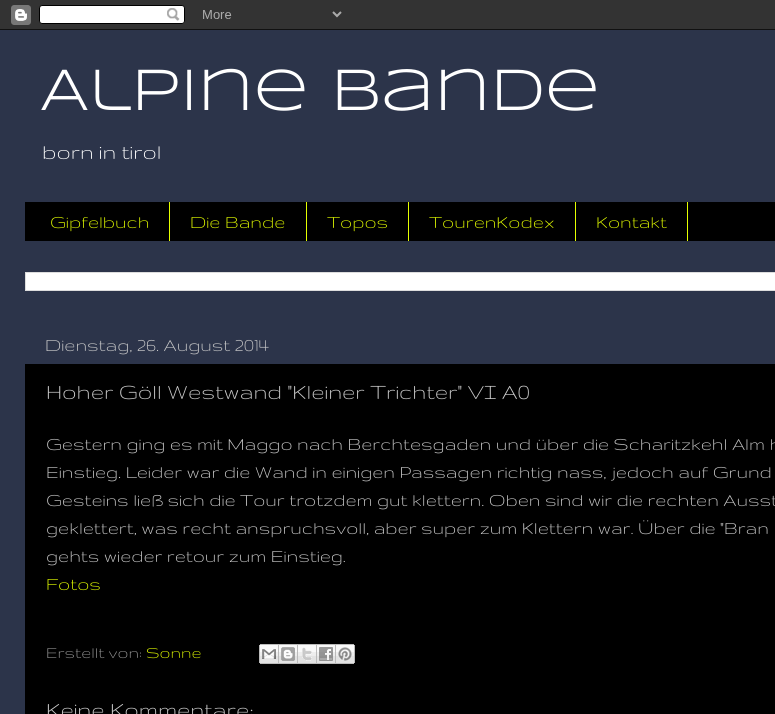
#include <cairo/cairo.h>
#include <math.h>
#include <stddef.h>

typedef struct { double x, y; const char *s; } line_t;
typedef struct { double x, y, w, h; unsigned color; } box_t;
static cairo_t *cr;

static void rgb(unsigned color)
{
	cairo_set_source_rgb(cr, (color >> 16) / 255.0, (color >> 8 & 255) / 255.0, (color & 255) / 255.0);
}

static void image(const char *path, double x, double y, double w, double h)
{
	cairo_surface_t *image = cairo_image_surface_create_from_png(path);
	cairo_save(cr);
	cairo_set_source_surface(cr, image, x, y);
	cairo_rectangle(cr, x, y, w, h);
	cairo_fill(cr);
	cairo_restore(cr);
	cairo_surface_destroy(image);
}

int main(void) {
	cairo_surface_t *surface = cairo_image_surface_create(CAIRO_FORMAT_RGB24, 775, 714);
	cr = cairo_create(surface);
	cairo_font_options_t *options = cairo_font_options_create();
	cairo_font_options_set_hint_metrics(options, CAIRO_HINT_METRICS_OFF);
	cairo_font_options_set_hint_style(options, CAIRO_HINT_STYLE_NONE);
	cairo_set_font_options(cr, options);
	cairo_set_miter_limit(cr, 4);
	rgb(0x2c344a);
	cairo_paint(cr);
	image("img/1.png", 0, 0, 775, 30);
	{
		static const box_t items[] = {
			{25, 202, 750, 39, 0x000000},
			{169, 202, 1, 39, 0xe5ff00},
			{306, 202, 1, 39, 0xe5ff00},
			{408, 202, 1, 39, 0xe5ff00},
			{575, 202, 1, 39, 0xe5ff00},
			{687, 202, 1, 39, 0xe5ff00},
		};
		for (size_t i = 0; i < sizeof items / sizeof *items; i++) {
			rgb(items[i].color);
			cairo_rectangle(cr, items[i].x, items[i].y, items[i].w, items[i].h);
			cairo_fill(cr);
		}
	}
	rgb(0xffffff);
	cairo_rectangle(cr, 25.5, 272.5, 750, 18);
	cairo_fill_preserve(cr);
	rgb(0xdddddd);
	cairo_set_line_width(cr, 1);
	cairo_stroke(cr);
	rgb(0x000000);
	cairo_rectangle(cr, 25, 364, 750, 350);
	cairo_fill(cr);
	image("img/2.png", 259, 644, 20, 20);
	image("img/3.png", 279, 644, 19, 20);
	image("img/4.png", 298, 644, 19, 20);
	image("img/5.png", 317, 644, 19, 20);
	image("img/6.png", 336, 644, 19, 20);
	cairo_select_font_face(cr, "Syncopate", CAIRO_FONT_SLANT_NORMAL, CAIRO_FONT_WEIGHT_NORMAL);
	cairo_set_font_size(cr, 60);
	rgb(0xffffff);
	cairo_move_to(cr, 40, 110);
	cairo_show_text(cr, "Alpine Bande");
	cairo_select_font_face(cr, "Gruppo", CAIRO_FONT_SLANT_NORMAL, CAIRO_FONT_WEIGHT_NORMAL);
	cairo_set_font_size(cr, 23.5);
	cairo_move_to(cr, 42, 159);
	cairo_show_text(cr, "born in tirol");
	cairo_set_font_size(cr, 20);
	rgb(0xe5ff00);
	{
		static const line_t items[] = {
			{50, 228, "Gipfelbuch"},
			{190, 228, "Die Bande"},
			{327, 228, "Topos"},
			{429, 228, "TourenKodex"},
			{596, 228, "Kontakt"},
		};
		for (size_t i = 0; i < sizeof items / sizeof *items; i++) {
			cairo_move_to(cr, items[i].x, items[i].y);
			cairo_show_text(cr, items[i].s);
		}
	}
	rgb(0xcccccc);
	cairo_move_to(cr, 45, 351);
	cairo_show_text(cr, "Dienstag, 26. August 2014");
	cairo_set_font_size(cr, 24);
	cairo_move_to(cr, 46, 399);
	cairo_show_text(cr, "Hoher Göll Westwand \"Kleiner Trichter\" VI A0");
	cairo_set_font_size(cr, 20);
	{
		static const line_t items[] = {
			{46, 450, "Gestern ging es mit Maggo nach Berchtesgaden und über die Scharitzkehl Alm h"},
			{46, 478, "Einstieg. Leider war die Wand in einigen Passagen richtig nass, jedoch auf Grund"},
			{46, 506, "Gesteins ließ sich die Tour trotzdem gut klettern. Oben sind wir die rechten Ausst"},
			{46, 534, "geklettert, was recht anspruchsvoll, aber super zum Klettern war. Über die \"Bran"},
			{46, 562, "gehts wieder retour zum Einstieg."},
		};
		for (size_t i = 0; i < sizeof items / sizeof *items; i++) {
			cairo_move_to(cr, items[i].x, items[i].y);
			cairo_show_text(cr, items[i].s);
		}
	}
	rgb(0xe5ff00);
	cairo_move_to(cr, 46, 590);
	cairo_show_text(cr, "Fotos");
	cairo_set_font_size(cr, 18);
	rgb(0x999999);
	cairo_move_to(cr, 46, 658);
	cairo_show_text(cr, "Erstellt von:");
	rgb(0xe5ff00);
	cairo_move_to(cr, 146, 658);
	cairo_show_text(cr, "Sonne");
	cairo_set_font_size(cr, 24);
	rgb(0xcccccc);
	cairo_move_to(cr, 46, 717);
	cairo_show_text(cr, "Keine Kommentare:");
	cairo_surface_write_to_png(surface, "page.png");
	cairo_font_options_destroy(options);
	cairo_destroy(cr);
	cairo_surface_destroy(surface);
	return 0;
}
